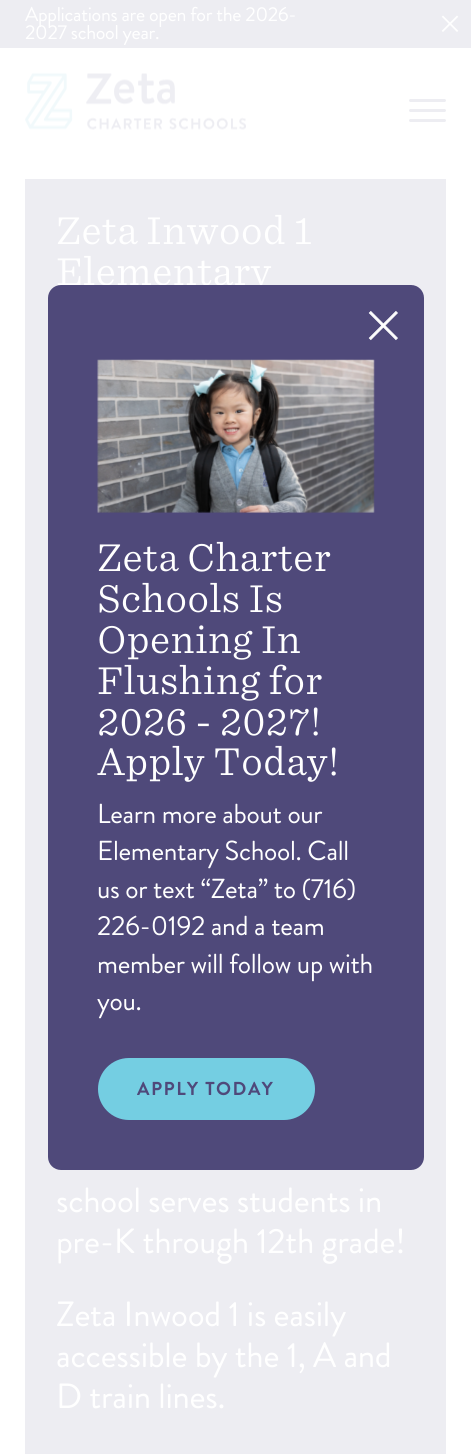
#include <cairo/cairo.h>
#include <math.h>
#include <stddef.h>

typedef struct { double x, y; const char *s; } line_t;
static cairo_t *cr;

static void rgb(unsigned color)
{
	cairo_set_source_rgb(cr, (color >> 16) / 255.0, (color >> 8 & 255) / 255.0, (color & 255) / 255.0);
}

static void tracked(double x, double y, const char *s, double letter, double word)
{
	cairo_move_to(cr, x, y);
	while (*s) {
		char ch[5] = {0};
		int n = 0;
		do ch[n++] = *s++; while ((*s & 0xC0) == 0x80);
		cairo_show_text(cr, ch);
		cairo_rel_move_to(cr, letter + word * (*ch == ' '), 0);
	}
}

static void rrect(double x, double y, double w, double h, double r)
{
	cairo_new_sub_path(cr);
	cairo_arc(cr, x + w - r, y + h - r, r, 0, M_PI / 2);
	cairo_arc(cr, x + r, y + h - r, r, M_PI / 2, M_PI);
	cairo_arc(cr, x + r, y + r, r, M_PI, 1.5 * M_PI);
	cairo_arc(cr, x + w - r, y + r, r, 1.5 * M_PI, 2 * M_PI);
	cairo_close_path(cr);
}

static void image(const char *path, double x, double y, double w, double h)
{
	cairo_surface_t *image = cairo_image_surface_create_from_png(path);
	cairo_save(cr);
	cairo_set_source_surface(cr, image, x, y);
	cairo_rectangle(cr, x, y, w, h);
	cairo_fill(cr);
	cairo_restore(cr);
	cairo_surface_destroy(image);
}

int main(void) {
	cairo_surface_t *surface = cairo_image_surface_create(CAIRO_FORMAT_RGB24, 471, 1454);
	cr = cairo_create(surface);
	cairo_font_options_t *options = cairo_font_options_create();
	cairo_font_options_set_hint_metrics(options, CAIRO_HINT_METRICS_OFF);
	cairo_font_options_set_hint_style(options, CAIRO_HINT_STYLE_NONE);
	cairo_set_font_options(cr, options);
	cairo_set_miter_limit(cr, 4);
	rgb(0xffffff);
	cairo_paint(cr);
	rgb(0xededf2);
	cairo_rectangle(cr, 0, 0, 471, 48);
	cairo_fill(cr);
	image("img/1.png", 441, 15, 18, 17);
	image("img/2.png", 25, 72, 221, 58);
	rrect(409, 109, 37, 3, 1.5);
	cairo_fill(cr);
	rrect(409, 99, 37, 3, 1.5);
	cairo_fill(cr);
	rrect(409, 119, 37, 3, 1.5);
	cairo_fill(cr);
	cairo_rectangle(cr, 25, 179, 421, 1275);
	cairo_fill(cr);
	cairo_select_font_face(cr, "Brandon Grotesque", CAIRO_FONT_SLANT_NORMAL, CAIRO_FONT_WEIGHT_NORMAL);
	cairo_set_font_size(cr, 20);
	rgb(0xffffff);
	tracked(25, 21, "Applications are open for the 2026-", -0.3, 0);
	tracked(25, 39, "2027 school year.", -0.3, 0);
	cairo_select_font_face(cr, "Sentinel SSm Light", CAIRO_FONT_SLANT_NORMAL, CAIRO_FONT_WEIGHT_NORMAL);
	cairo_set_font_size(cr, 37.5);
	cairo_move_to(cr, 56, 244);
	cairo_show_text(cr, "Zeta Inwood 1");
	cairo_move_to(cr, 56, 285);
	cairo_show_text(cr, "Elementary");
	cairo_select_font_face(cr, "Brandon Grotesque", CAIRO_FONT_SLANT_NORMAL, CAIRO_FONT_WEIGHT_NORMAL);
	cairo_set_font_size(cr, 35);
	{
		static const line_t items[] = {
			{56, 1212, "school serves students in"},
			{56, 1253, "pre-K through 12th grade!"},
			{56, 1326, "Zeta Inwood 1 is easily"},
			{56, 1367, "accessible by the 1, A and"},
			{56, 1408, "D train lines."},
		};
		for (size_t i = 0; i < sizeof items / sizeof *items; i++) {
			tracked(items[i].x, items[i].y, items[i].s, -0.3, 0);
		}
	}
	rgb(0x4f497a);
	rrect(48, 285, 376, 885, 13);
	cairo_fill(cr);
	image("img/3.png", 97, 359, 278, 154);
	image("img/4.png", 368, 311, 30, 30);
	cairo_select_font_face(cr, "Sentinel SSm Light", CAIRO_FONT_SLANT_NORMAL, CAIRO_FONT_WEIGHT_NORMAL);
	cairo_set_font_size(cr, 37.5);
	rgb(0xffffff);
	{
		static const line_t items[] = {
			{97, 571, "Zeta Charter"},
			{97, 612, "Schools Is"},
			{97, 653, "Opening In"},
			{97, 694, "Flushing for"},
			{97, 735, "2026 - 2027!"},
			{97, 775, "Apply Today!"},
		};
		for (size_t i = 0; i < sizeof items / sizeof *items; i++) {
			cairo_move_to(cr, items[i].x, items[i].y);
			cairo_show_text(cr, items[i].s);
		}
	}
	cairo_select_font_face(cr, "Brandon Grotesque", CAIRO_FONT_SLANT_NORMAL, CAIRO_FONT_WEIGHT_NORMAL);
	cairo_set_font_size(cr, 27.5);
	{
		static const line_t items[] = {
			{97, 823, "Learn more about our"},
			{97, 860, "Elementary School. Call"},
			{97, 898, "us or text “Zeta” to (716)"},
			{97, 935, "226-0192 and a team"},
			{97, 973, "member will follow up with"},
			{97, 1010, "you."},
		};
		for (size_t i = 0; i < sizeof items / sizeof *items; i++) {
			tracked(items[i].x, items[i].y, items[i].s, -0.3, 0);
		}
	}
	rgb(0x74cee2);
	rrect(98, 1058, 217, 62, 31);
	cairo_fill(cr);
	cairo_select_font_face(cr, "Brandon Grotesque", CAIRO_FONT_SLANT_NORMAL, CAIRO_FONT_WEIGHT_BOLD);
	cairo_set_font_size(cr, 18.75);
	rgb(0x4f497a);
	tracked(137, 1095, "APPLY TODAY", 1.5, 0);
	cairo_surface_write_to_png(surface, "page.png");
	cairo_font_options_destroy(options);
	cairo_destroy(cr);
	cairo_surface_destroy(surface);
	return 0;
}
